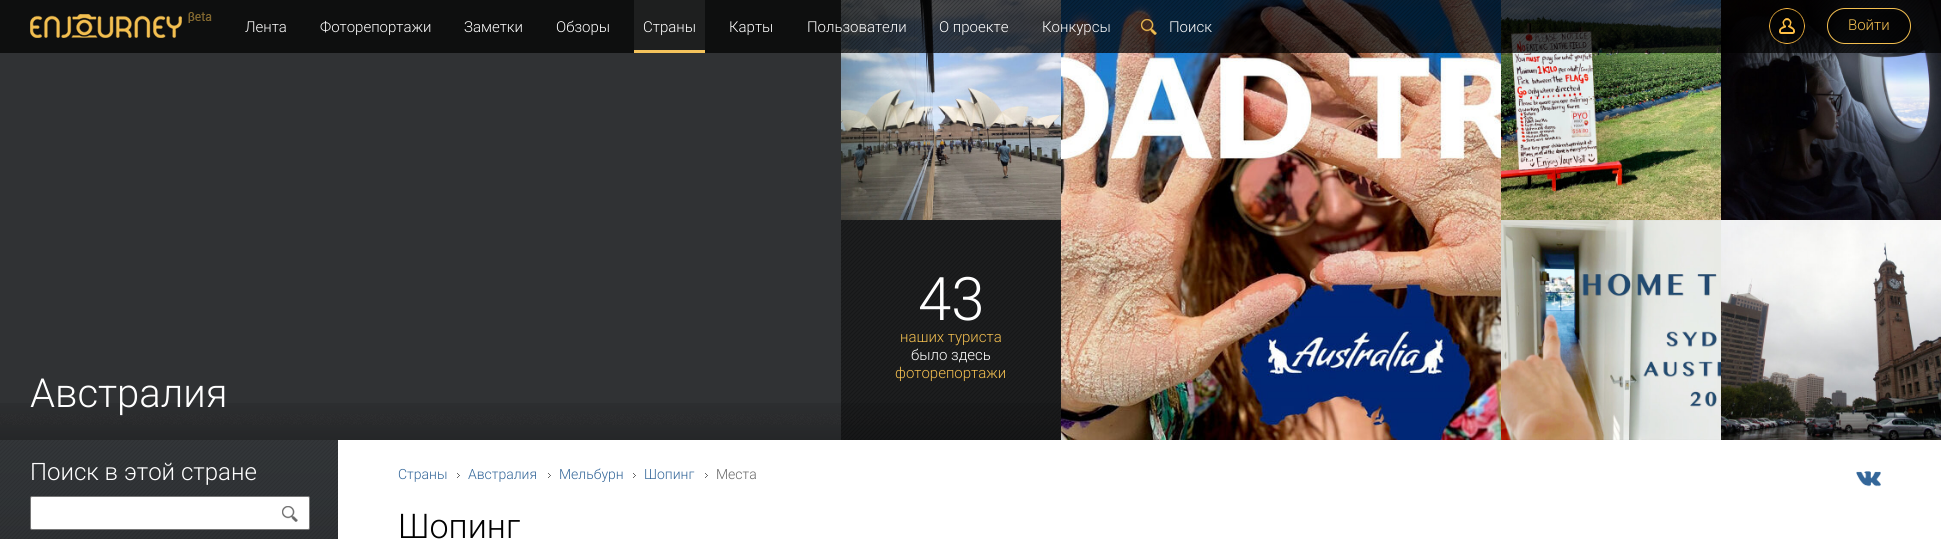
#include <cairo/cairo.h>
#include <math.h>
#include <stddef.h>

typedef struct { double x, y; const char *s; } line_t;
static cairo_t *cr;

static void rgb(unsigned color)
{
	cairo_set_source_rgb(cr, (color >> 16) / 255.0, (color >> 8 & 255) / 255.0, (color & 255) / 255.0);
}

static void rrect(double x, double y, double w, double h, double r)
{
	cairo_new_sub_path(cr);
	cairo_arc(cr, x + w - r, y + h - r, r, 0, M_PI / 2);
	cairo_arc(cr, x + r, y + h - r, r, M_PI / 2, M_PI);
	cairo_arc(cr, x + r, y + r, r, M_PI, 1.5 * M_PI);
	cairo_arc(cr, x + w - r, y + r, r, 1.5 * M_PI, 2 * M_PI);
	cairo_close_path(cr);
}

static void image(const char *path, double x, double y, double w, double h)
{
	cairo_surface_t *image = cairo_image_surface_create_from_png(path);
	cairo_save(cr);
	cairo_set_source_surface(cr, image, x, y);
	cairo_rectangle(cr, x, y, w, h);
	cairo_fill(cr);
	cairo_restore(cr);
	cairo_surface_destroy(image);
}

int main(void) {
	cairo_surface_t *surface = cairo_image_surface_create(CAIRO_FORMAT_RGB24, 1941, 539);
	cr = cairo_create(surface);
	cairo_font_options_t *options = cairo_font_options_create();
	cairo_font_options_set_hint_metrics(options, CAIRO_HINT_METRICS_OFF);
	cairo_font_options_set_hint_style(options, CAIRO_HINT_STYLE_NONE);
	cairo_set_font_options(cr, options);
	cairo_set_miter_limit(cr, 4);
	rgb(0x303234);
	cairo_paint(cr);
	image("img/7.png", 841, 0, 220, 220);
	image("img/8.png", 1061, 0, 440, 440);
	image("img/9.png", 1501, 0, 220, 220);
	image("img/10.png", 1721, 0, 220, 220);
	cairo_set_source_rgba(cr, 0, 0, 0, 0.7);
	cairo_rectangle(cr, 0, 0, 1941, 53);
	cairo_fill(cr);
	image("img/1.png", 841, 0, 1088, 53);
	image("img/2.png", 30, 14, 152, 24);
	image("img/3.png", 188, 12, 24, 11);
	rgb(0xf3bf50);
	cairo_rectangle(cr, 634, 50, 71, 3);
	cairo_fill(cr);
	cairo_set_source_rgba(cr, 1, 1, 1, 0.07);
	cairo_rectangle(cr, 634, 0, 71, 53);
	cairo_fill(cr);
	image("img/4.png", 1141, 19, 16, 16);
	image("img/5.png", 1769, 8, 36, 36);
	image("img/6.png", 1828, 8, 83, 36);
	rrect(1827.5, 8.5, 83, 35, 17.5);
	rgb(0xf3bf50);
	cairo_set_line_width(cr, 1);
	cairo_stroke(cr);
	image("img/15.png", 0, 414, 1061, 11);
	image("img/14.png", 0, 403, 1061, 37);
	image("img/11.png", 841, 220, 220, 220);
	cairo_set_source_rgba(cr, 0, 0, 0, 0.4);
	cairo_rectangle(cr, 841, 220, 220, 220);
	cairo_fill(cr);
	image("img/12.png", 1501, 220, 220, 220);
	image("img/13.png", 1721, 220, 220, 220);
	image("img/16.png", 0, 440, 338, 99);
	image("img/17.png", 0, 440, 338, 99);
	rgb(0xffffff);
	rrect(30.5, 496.5, 279, 33, 1.5);
	cairo_fill_preserve(cr);
	rgb(0x767676);
	cairo_stroke(cr);
	image("img/18.png", 282, 506, 16, 16);
	rgb(0xffffff);
	cairo_rectangle(cr, 338, 440, 1603, 99);
	cairo_fill(cr);
	image("img/19.png", 457, 473, 3, 5);
	image("img/19.png", 548, 473, 3, 5);
	image("img/19.png", 633, 473, 3, 5);
	image("img/19.png", 705, 473, 3, 5);
	image("img/20.png", 1856, 471, 25, 16);
	cairo_select_font_face(cr, "Roboto Light", CAIRO_FONT_SLANT_NORMAL, CAIRO_FONT_WEIGHT_NORMAL);
	cairo_set_font_size(cr, 15);
	{
		static const line_t items[] = {
			{245, 32, "Лента"},
			{320, 32, "Фоторепортажи"},
			{464, 32, "Заметки"},
			{556, 32, "Обзоры"},
			{643, 32, "Страны"},
			{729, 32, "Карты"},
			{807, 32, "Пользователи"},
			{939, 32, "О проекте"},
			{1042, 32, "Конкурсы"},
			{1169, 32, "Поиск"},
		};
		for (size_t i = 0; i < sizeof items / sizeof *items; i++) {
			cairo_move_to(cr, items[i].x, items[i].y);
			cairo_show_text(cr, items[i].s);
		}
	}
	rgb(0xf3bf50);
	cairo_move_to(cr, 1848, 30);
	cairo_show_text(cr, "Войти");
	cairo_set_font_size(cr, 60);
	rgb(0xffffff);
	cairo_move_to(cr, 918, 320);
	cairo_show_text(cr, "43");
	cairo_set_font_size(cr, 15);
	rgb(0xf3bf50);
	cairo_move_to(cr, 900, 342);
	cairo_show_text(cr, "наших туриста");
	rgb(0xffffff);
	cairo_move_to(cr, 911, 360);
	cairo_show_text(cr, "было здесь");
	rgb(0xf3bf50);
	cairo_move_to(cr, 895, 378);
	cairo_show_text(cr, "фоторепортажи");
	cairo_set_font_size(cr, 40);
	rgb(0xffffff);
	cairo_move_to(cr, 30, 407);
	cairo_show_text(cr, "Австралия");
	cairo_set_font_size(cr, 24);
	cairo_move_to(cr, 30, 480);
	cairo_show_text(cr, "Поиск в этой стране");
	cairo_set_font_size(cr, 14);
	rgb(0x336699);
	{
		static const line_t items[] = {
			{398, 479, "Страны"},
			{468, 479, "Австралия"},
			{559, 479, "Мельбурн"},
			{644, 479, "Шопинг"},
		};
		for (size_t i = 0; i < sizeof items / sizeof *items; i++) {
			cairo_move_to(cr, items[i].x, items[i].y);
			cairo_show_text(cr, items[i].s);
		}
	}
	rgb(0x666666);
	cairo_move_to(cr, 716, 479);
	cairo_show_text(cr, "Места");
	cairo_set_font_size(cr, 34);
	rgb(0x000000);
	cairo_move_to(cr, 398, 538);
	cairo_show_text(cr, "Шопинг");
	cairo_surface_write_to_png(surface, "page.png");
	cairo_font_options_destroy(options);
	cairo_destroy(cr);
	cairo_surface_destroy(surface);
	return 0;
}
